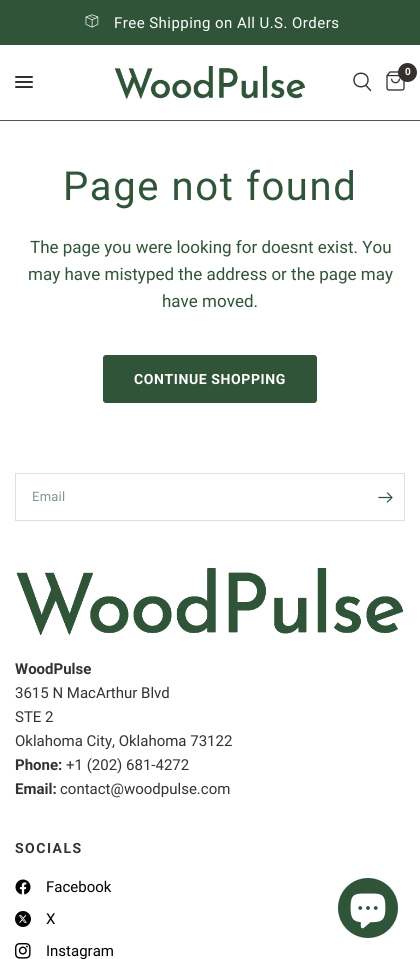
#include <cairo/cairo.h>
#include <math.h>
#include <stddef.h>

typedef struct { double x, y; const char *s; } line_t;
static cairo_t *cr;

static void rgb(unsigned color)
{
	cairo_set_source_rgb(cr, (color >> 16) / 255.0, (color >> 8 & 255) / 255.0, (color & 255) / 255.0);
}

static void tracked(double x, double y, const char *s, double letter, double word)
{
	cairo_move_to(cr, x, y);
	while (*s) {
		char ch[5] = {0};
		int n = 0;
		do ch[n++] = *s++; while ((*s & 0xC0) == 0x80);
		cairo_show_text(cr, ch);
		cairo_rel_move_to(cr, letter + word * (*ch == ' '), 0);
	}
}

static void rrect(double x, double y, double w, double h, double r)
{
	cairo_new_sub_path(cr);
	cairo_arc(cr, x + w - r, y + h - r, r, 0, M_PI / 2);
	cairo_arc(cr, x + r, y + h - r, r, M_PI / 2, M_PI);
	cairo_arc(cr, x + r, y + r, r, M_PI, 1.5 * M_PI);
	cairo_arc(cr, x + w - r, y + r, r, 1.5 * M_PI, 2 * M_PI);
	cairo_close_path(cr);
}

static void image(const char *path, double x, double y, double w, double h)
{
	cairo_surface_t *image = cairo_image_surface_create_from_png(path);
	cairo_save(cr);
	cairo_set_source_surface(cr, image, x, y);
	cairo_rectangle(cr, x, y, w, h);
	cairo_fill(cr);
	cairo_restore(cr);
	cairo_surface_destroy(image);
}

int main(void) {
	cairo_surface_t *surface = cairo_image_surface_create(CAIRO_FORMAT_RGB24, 420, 959);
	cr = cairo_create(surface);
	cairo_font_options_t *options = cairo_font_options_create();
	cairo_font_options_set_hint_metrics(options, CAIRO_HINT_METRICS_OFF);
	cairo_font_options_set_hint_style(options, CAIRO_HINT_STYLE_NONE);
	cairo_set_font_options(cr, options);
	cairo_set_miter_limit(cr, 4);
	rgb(0xffffff);
	cairo_paint(cr);
	rgb(0x2f5437);
	cairo_rectangle(cr, 0, 0, 420, 45);
	cairo_fill(cr);
	image("img/1.png", 85, 14, 14, 14);
	rgb(0x4e584a);
	cairo_rectangle(cr, 0, 120, 420, 1);
	cairo_fill(cr);
	image("img/2.png", 114, 65, 192, 34);
	cairo_new_path(cr);
	cairo_move_to(cr, 366, 85.5);
	cairo_line_to(cr, 370.5, 90.5);
	cairo_move_to(cr, 368, 80);
	cairo_curve_to(cr, 368, 89, 354, 89, 354, 80);
	cairo_curve_to(cr, 354, 71, 368, 71, 368, 80);
	cairo_close_path(cr);
	rgb(0x35302e);
	cairo_set_line_width(cr, 1.4);
	cairo_set_line_cap(cr, CAIRO_LINE_CAP_ROUND);
	cairo_set_line_join(cr, CAIRO_LINE_JOIN_ROUND);
	cairo_stroke(cr);
	image("img/3.png", 386, 71, 19, 20);
	cairo_arc(cr, 407.5, 72.5, 9.5, 0, 2 * M_PI);
	cairo_fill(cr);
	rrect(15, 76, 18, 2, 1);
	cairo_fill(cr);
	rrect(15, 81, 18, 2, 1);
	cairo_fill(cr);
	rrect(15, 86, 18, 2, 1);
	cairo_fill(cr);
	rgb(0x2f5437);
	rrect(103.5, 355.5, 213, 47, 2.5);
	cairo_fill_preserve(cr);
	cairo_set_line_width(cr, 1);
	cairo_set_line_cap(cr, CAIRO_LINE_CAP_BUTT);
	cairo_set_line_join(cr, CAIRO_LINE_JOIN_MITER);
	cairo_stroke(cr);
	cairo_rectangle(cr, 15.5, 473.5, 389, 47);
	rgb(0xdedede);
	cairo_stroke(cr);
	image("img/4.png", 378, 492, 15, 11);
	image("img/5.png", 16, 568, 388, 67);
	image("img/6.png", 15, 879, 16, 16);
	image("img/7.png", 15, 911, 16, 16);
	image("img/8.png", 15, 943, 16, 16);
	rgb(0x2f5437);
	cairo_arc(cr, 368, 908, 30, 0, 2 * M_PI);
	cairo_fill(cr);
	image("img/9.png", 350, 893, 36, 36);
	cairo_save(cr);
	cairo_rectangle(cr, 15, 14, 390, 17);
	cairo_clip(cr);
	cairo_select_font_face(cr, "Roboto", CAIRO_FONT_SLANT_NORMAL, CAIRO_FONT_WEIGHT_NORMAL);
	cairo_set_font_size(cr, 15);
	rgb(0xffffff);
	tracked(114, 28, "Free Shipping on All U.S. Orders", 0.45, 0);
	cairo_restore(cr);
	cairo_select_font_face(cr, "Roboto", CAIRO_FONT_SLANT_NORMAL, CAIRO_FONT_WEIGHT_BOLD);
	cairo_set_font_size(cr, 10);
	rgb(0xffffff);
	cairo_move_to(cr, 405, 75);
	cairo_show_text(cr, "0");
	cairo_select_font_face(cr, "Roboto", CAIRO_FONT_SLANT_NORMAL, CAIRO_FONT_WEIGHT_NORMAL);
	cairo_set_font_size(cr, 40);
	rgb(0x2f5437);
	tracked(63, 200, "Page not found", 1.6, 0);
	cairo_set_font_size(cr, 17);
	{
		static const line_t items[] = {
			{30, 253, "The page you were looking for doesnt exist. You"},
			{28, 280, "may have mistyped the address or the page may"},
			{162, 307, "have moved."},
		};
		for (size_t i = 0; i < sizeof items / sizeof *items; i++) {
			cairo_move_to(cr, items[i].x, items[i].y);
			cairo_show_text(cr, items[i].s);
		}
	}
	cairo_select_font_face(cr, "Roboto", CAIRO_FONT_SLANT_NORMAL, CAIRO_FONT_WEIGHT_BOLD);
	cairo_set_font_size(cr, 14);
	rgb(0xffffff);
	tracked(134, 384, "CONTINUE SHOPPING", 0.6, 0);
	cairo_select_font_face(cr, "Roboto", CAIRO_FONT_SLANT_NORMAL, CAIRO_FONT_WEIGHT_NORMAL);
	cairo_set_font_size(cr, 13);
	rgb(0x829887);
	tracked(32, 501, "Email", 0.25, 0);
	cairo_select_font_face(cr, "Roboto", CAIRO_FONT_SLANT_NORMAL, CAIRO_FONT_WEIGHT_BOLD);
	cairo_set_font_size(cr, 15);
	rgb(0x333333);
	cairo_move_to(cr, 15, 674);
	cairo_show_text(cr, "WoodPulse");
	cairo_select_font_face(cr, "Roboto", CAIRO_FONT_SLANT_NORMAL, CAIRO_FONT_WEIGHT_NORMAL);
	{
		static const line_t items[] = {
			{15, 698, "3615 N MacArthur Blvd"},
			{15, 722, "STE 2"},
			{15, 746, "Oklahoma City, Oklahoma 73122"},
		};
		for (size_t i = 0; i < sizeof items / sizeof *items; i++) {
			cairo_move_to(cr, items[i].x, items[i].y);
			cairo_show_text(cr, items[i].s);
		}
	}
	cairo_select_font_face(cr, "Roboto", CAIRO_FONT_SLANT_NORMAL, CAIRO_FONT_WEIGHT_BOLD);
	cairo_move_to(cr, 15, 770);
	cairo_show_text(cr, "Phone:");
	cairo_select_font_face(cr, "Roboto", CAIRO_FONT_SLANT_NORMAL, CAIRO_FONT_WEIGHT_NORMAL);
	cairo_move_to(cr, 66, 770);
	cairo_show_text(cr, "+1 (202) 681-4272");
	cairo_select_font_face(cr, "Roboto", CAIRO_FONT_SLANT_NORMAL, CAIRO_FONT_WEIGHT_BOLD);
	cairo_move_to(cr, 15, 794);
	cairo_show_text(cr, "Email:");
	cairo_select_font_face(cr, "Roboto", CAIRO_FONT_SLANT_NORMAL, CAIRO_FONT_WEIGHT_NORMAL);
	cairo_move_to(cr, 60, 794);
	cairo_show_text(cr, "contact@woodpulse.com");
	cairo_select_font_face(cr, "Roboto", CAIRO_FONT_SLANT_NORMAL, CAIRO_FONT_WEIGHT_BOLD);
	cairo_set_font_size(cr, 14);
	tracked(15, 853, "SOCIALS", 1.5, 0);
	cairo_select_font_face(cr, "Roboto", CAIRO_FONT_SLANT_NORMAL, CAIRO_FONT_WEIGHT_NORMAL);
	cairo_set_font_size(cr, 15);
	rgb(0x000000);
	{
		static const line_t items[] = {
			{46, 892, "Facebook"},
			{46, 924, "X"},
			{46, 956, "Instagram"},
		};
		for (size_t i = 0; i < sizeof items / sizeof *items; i++) {
			cairo_move_to(cr, items[i].x, items[i].y);
			cairo_show_text(cr, items[i].s);
		}
	}
	cairo_surface_write_to_png(surface, "page.png");
	cairo_font_options_destroy(options);
	cairo_destroy(cr);
	cairo_surface_destroy(surface);
	return 0;
}
